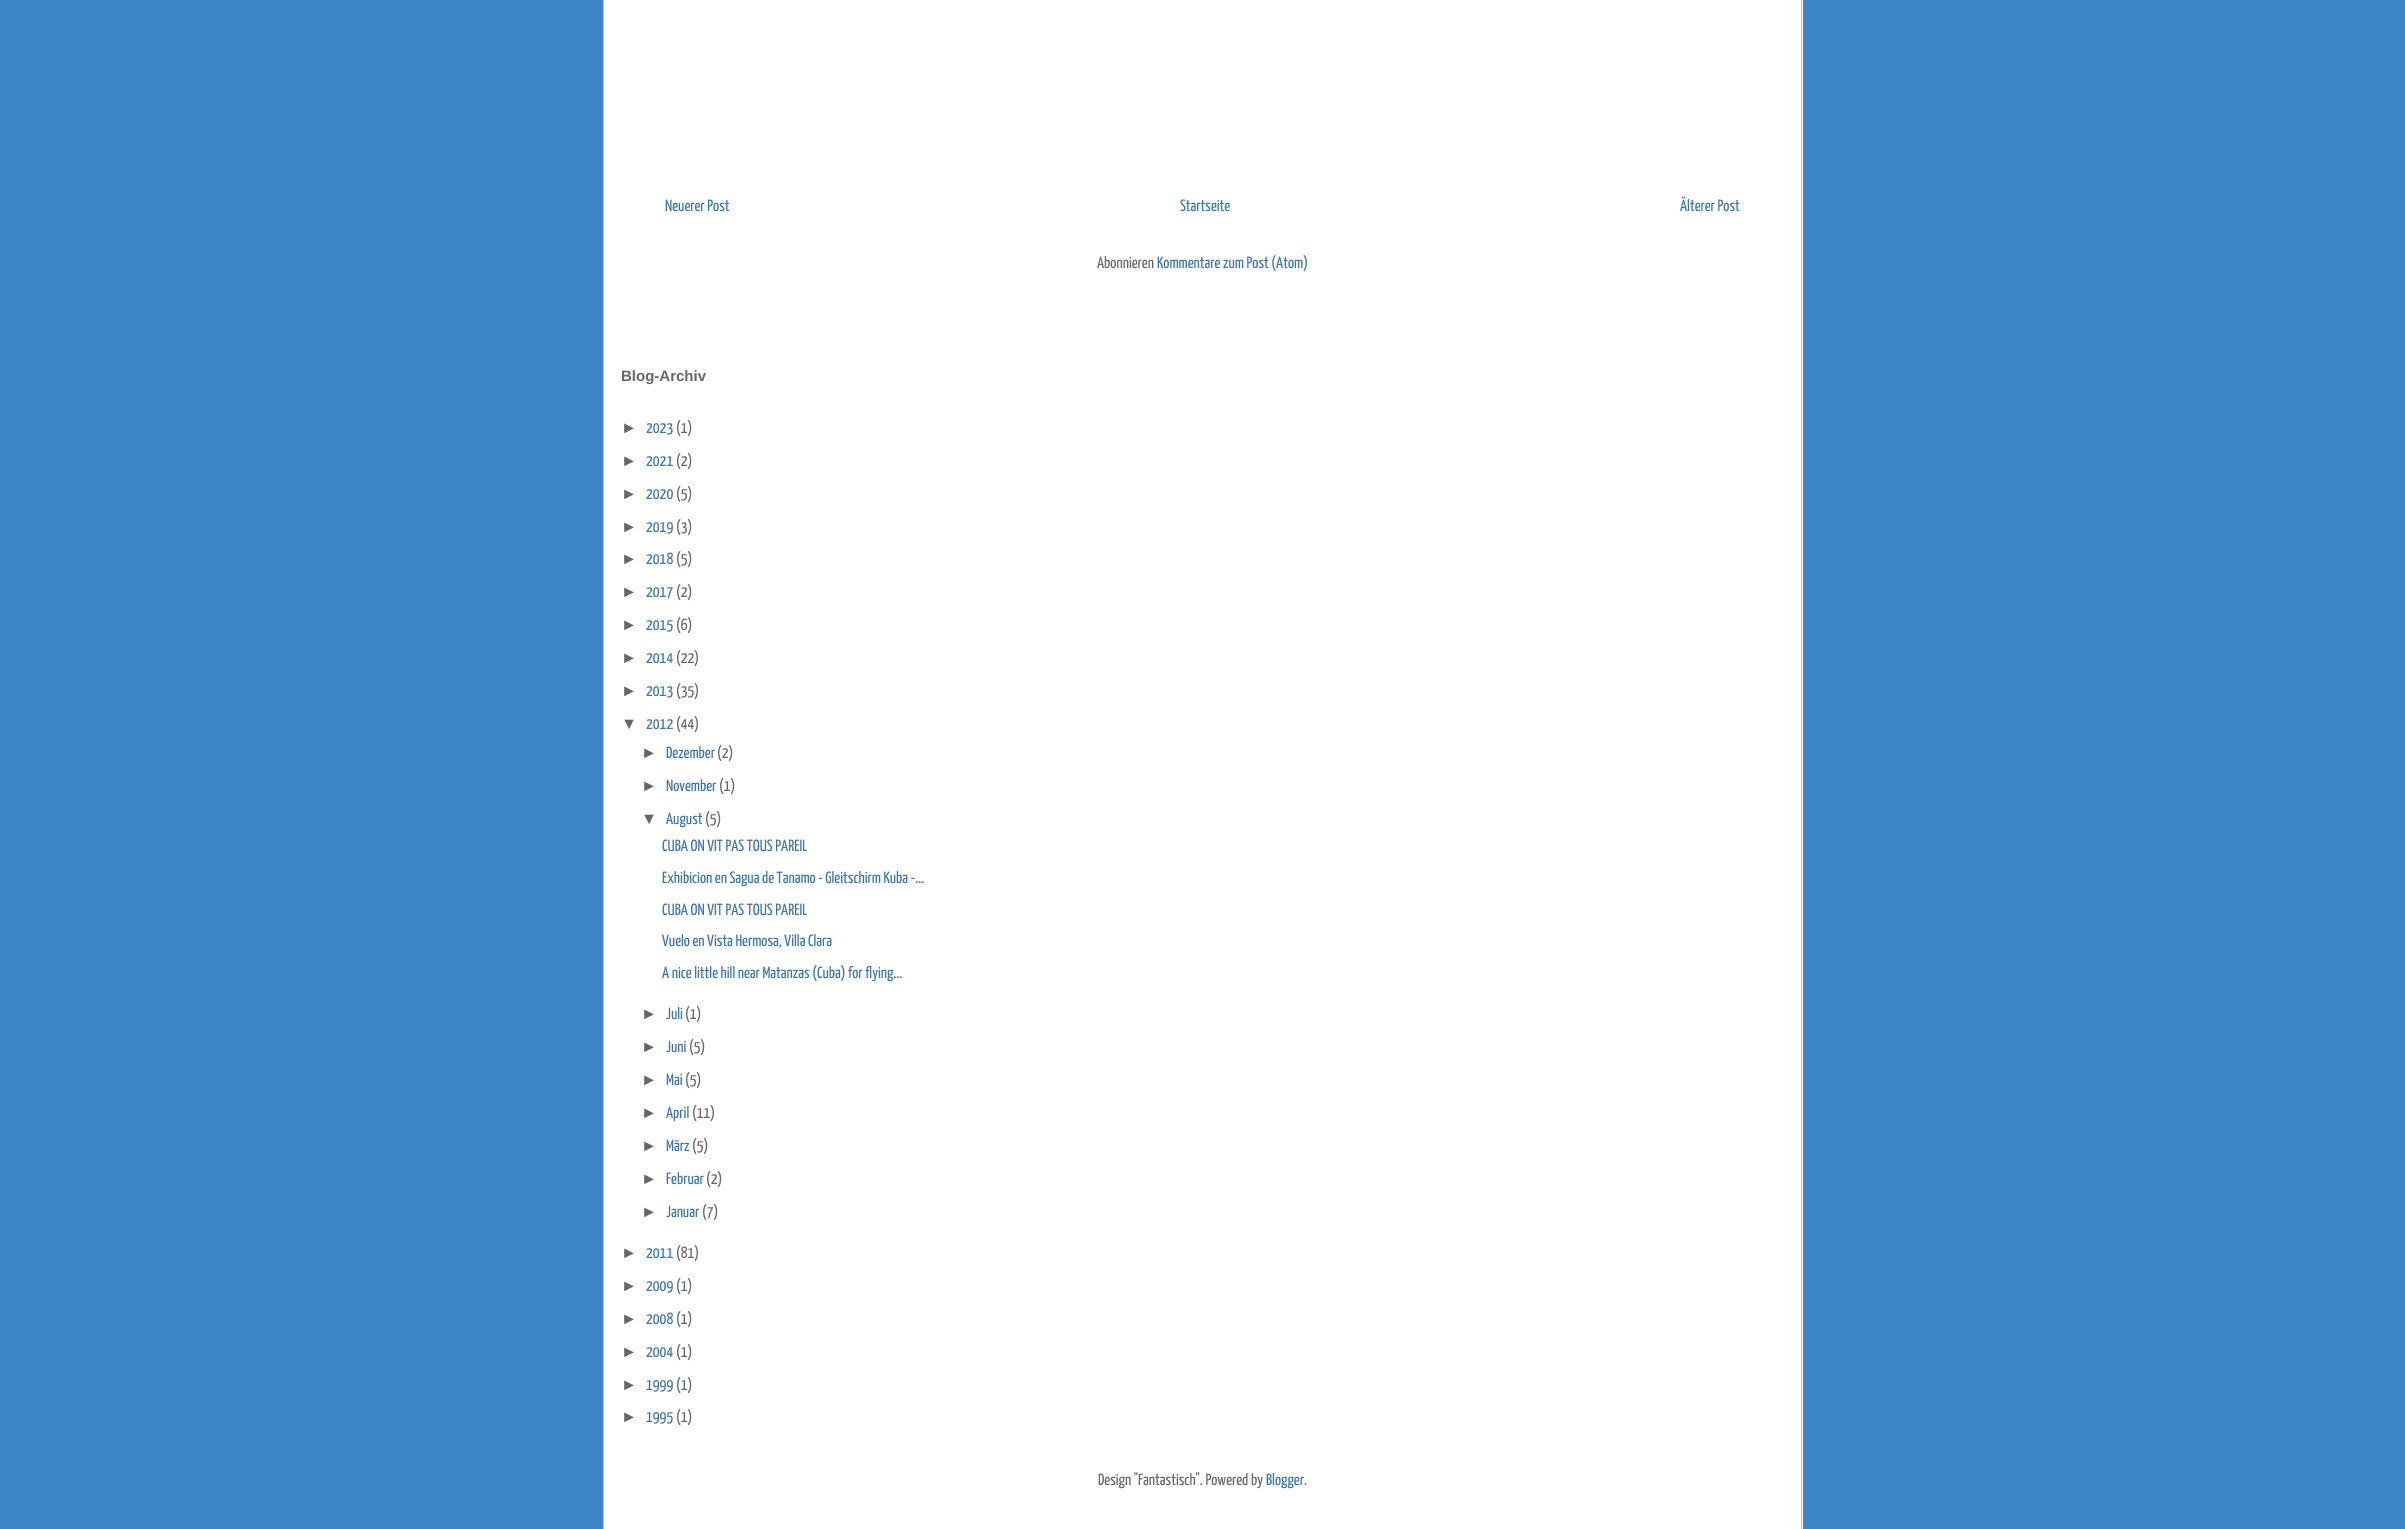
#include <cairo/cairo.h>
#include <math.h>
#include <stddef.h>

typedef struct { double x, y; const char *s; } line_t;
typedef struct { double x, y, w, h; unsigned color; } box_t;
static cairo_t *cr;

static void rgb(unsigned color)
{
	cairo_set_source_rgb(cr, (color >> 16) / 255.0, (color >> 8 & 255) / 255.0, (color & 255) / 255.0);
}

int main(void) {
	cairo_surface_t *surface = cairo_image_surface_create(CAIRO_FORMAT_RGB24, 2405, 1529);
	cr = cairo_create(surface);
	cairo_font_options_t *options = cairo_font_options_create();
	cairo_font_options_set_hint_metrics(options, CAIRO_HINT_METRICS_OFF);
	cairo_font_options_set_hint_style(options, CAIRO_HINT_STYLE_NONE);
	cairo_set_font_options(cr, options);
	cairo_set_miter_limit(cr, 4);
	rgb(0x3d85c6);
	cairo_paint(cr);
	{
		static const box_t items[] = {
			{604, 0, 1199, 1529, 0xffffff},
			{1801, 0, 1, 1529, 0xbbbbff},
			{603, 0, 1, 1529, 0xbbbbff},
		};
		for (size_t i = 0; i < sizeof items / sizeof *items; i++) {
			rgb(items[i].color);
			cairo_rectangle(cr, items[i].x, items[i].y, items[i].w, items[i].h);
			cairo_fill(cr);
		}
	}
	cairo_select_font_face(cr, "Yanone Kaffeesatz ExtraLight", CAIRO_FONT_SLANT_NORMAL, CAIRO_FONT_WEIGHT_NORMAL);
	cairo_set_font_size(cr, 16.25);
	rgb(0x3d74a5);
	{
		static const line_t items[] = {
			{665, 211, "Neuerer Post"},
			{1180, 211, "Startseite"},
			{1680, 211, "Älterer Post"},
		};
		for (size_t i = 0; i < sizeof items / sizeof *items; i++) {
			cairo_move_to(cr, items[i].x, items[i].y);
			cairo_show_text(cr, items[i].s);
		}
	}
	rgb(0x666666);
	cairo_move_to(cr, 1097, 268);
	cairo_show_text(cr, "Abonnieren");
	rgb(0x3d74a5);
	cairo_move_to(cr, 1157, 268);
	cairo_show_text(cr, "Kommentare zum Post (Atom)");
	cairo_select_font_face(cr, "Liberation Sans", CAIRO_FONT_SLANT_NORMAL, CAIRO_FONT_WEIGHT_BOLD);
	cairo_set_font_size(cr, 15);
	rgb(0x666666);
	cairo_move_to(cr, 621, 381);
	cairo_show_text(cr, "Blog-Archiv");
	cairo_select_font_face(cr, "Liberation Sans", CAIRO_FONT_SLANT_NORMAL, CAIRO_FONT_WEIGHT_NORMAL);
	cairo_set_font_size(cr, 16.25);
	cairo_move_to(cr, 621, 433);
	cairo_show_text(cr, "►");
	cairo_select_font_face(cr, "Yanone Kaffeesatz ExtraLight", CAIRO_FONT_SLANT_NORMAL, CAIRO_FONT_WEIGHT_NORMAL);
	rgb(0x3d74a5);
	cairo_move_to(cr, 646, 433);
	cairo_show_text(cr, "2023");
	rgb(0x666666);
	cairo_move_to(cr, 676, 433);
	cairo_show_text(cr, "(1)");
	cairo_select_font_face(cr, "Liberation Sans", CAIRO_FONT_SLANT_NORMAL, CAIRO_FONT_WEIGHT_NORMAL);
	cairo_move_to(cr, 621, 466);
	cairo_show_text(cr, "►");
	cairo_select_font_face(cr, "Yanone Kaffeesatz ExtraLight", CAIRO_FONT_SLANT_NORMAL, CAIRO_FONT_WEIGHT_NORMAL);
	rgb(0x3d74a5);
	cairo_move_to(cr, 646, 466);
	cairo_show_text(cr, "2021");
	rgb(0x666666);
	cairo_move_to(cr, 676, 466);
	cairo_show_text(cr, "(2)");
	cairo_select_font_face(cr, "Liberation Sans", CAIRO_FONT_SLANT_NORMAL, CAIRO_FONT_WEIGHT_NORMAL);
	cairo_move_to(cr, 621, 499);
	cairo_show_text(cr, "►");
	cairo_select_font_face(cr, "Yanone Kaffeesatz ExtraLight", CAIRO_FONT_SLANT_NORMAL, CAIRO_FONT_WEIGHT_NORMAL);
	rgb(0x3d74a5);
	cairo_move_to(cr, 646, 499);
	cairo_show_text(cr, "2020");
	rgb(0x666666);
	cairo_move_to(cr, 676, 499);
	cairo_show_text(cr, "(5)");
	cairo_select_font_face(cr, "Liberation Sans", CAIRO_FONT_SLANT_NORMAL, CAIRO_FONT_WEIGHT_NORMAL);
	cairo_move_to(cr, 621, 532);
	cairo_show_text(cr, "►");
	cairo_select_font_face(cr, "Yanone Kaffeesatz ExtraLight", CAIRO_FONT_SLANT_NORMAL, CAIRO_FONT_WEIGHT_NORMAL);
	rgb(0x3d74a5);
	cairo_move_to(cr, 646, 532);
	cairo_show_text(cr, "2019");
	rgb(0x666666);
	cairo_move_to(cr, 676, 532);
	cairo_show_text(cr, "(3)");
	cairo_select_font_face(cr, "Liberation Sans", CAIRO_FONT_SLANT_NORMAL, CAIRO_FONT_WEIGHT_NORMAL);
	cairo_move_to(cr, 621, 564);
	cairo_show_text(cr, "►");
	cairo_select_font_face(cr, "Yanone Kaffeesatz ExtraLight", CAIRO_FONT_SLANT_NORMAL, CAIRO_FONT_WEIGHT_NORMAL);
	rgb(0x3d74a5);
	cairo_move_to(cr, 646, 564);
	cairo_show_text(cr, "2018");
	rgb(0x666666);
	cairo_move_to(cr, 676, 564);
	cairo_show_text(cr, "(5)");
	cairo_select_font_face(cr, "Liberation Sans", CAIRO_FONT_SLANT_NORMAL, CAIRO_FONT_WEIGHT_NORMAL);
	cairo_move_to(cr, 621, 597);
	cairo_show_text(cr, "►");
	cairo_select_font_face(cr, "Yanone Kaffeesatz ExtraLight", CAIRO_FONT_SLANT_NORMAL, CAIRO_FONT_WEIGHT_NORMAL);
	rgb(0x3d74a5);
	cairo_move_to(cr, 646, 597);
	cairo_show_text(cr, "2017");
	rgb(0x666666);
	cairo_move_to(cr, 676, 597);
	cairo_show_text(cr, "(2)");
	cairo_select_font_face(cr, "Liberation Sans", CAIRO_FONT_SLANT_NORMAL, CAIRO_FONT_WEIGHT_NORMAL);
	cairo_move_to(cr, 621, 630);
	cairo_show_text(cr, "►");
	cairo_select_font_face(cr, "Yanone Kaffeesatz ExtraLight", CAIRO_FONT_SLANT_NORMAL, CAIRO_FONT_WEIGHT_NORMAL);
	rgb(0x3d74a5);
	cairo_move_to(cr, 646, 630);
	cairo_show_text(cr, "2015");
	rgb(0x666666);
	cairo_move_to(cr, 676, 630);
	cairo_show_text(cr, "(6)");
	cairo_select_font_face(cr, "Liberation Sans", CAIRO_FONT_SLANT_NORMAL, CAIRO_FONT_WEIGHT_NORMAL);
	cairo_move_to(cr, 621, 663);
	cairo_show_text(cr, "►");
	cairo_select_font_face(cr, "Yanone Kaffeesatz ExtraLight", CAIRO_FONT_SLANT_NORMAL, CAIRO_FONT_WEIGHT_NORMAL);
	rgb(0x3d74a5);
	cairo_move_to(cr, 646, 663);
	cairo_show_text(cr, "2014");
	rgb(0x666666);
	cairo_move_to(cr, 676, 663);
	cairo_show_text(cr, "(22)");
	cairo_select_font_face(cr, "Liberation Sans", CAIRO_FONT_SLANT_NORMAL, CAIRO_FONT_WEIGHT_NORMAL);
	cairo_move_to(cr, 621, 696);
	cairo_show_text(cr, "►");
	cairo_select_font_face(cr, "Yanone Kaffeesatz ExtraLight", CAIRO_FONT_SLANT_NORMAL, CAIRO_FONT_WEIGHT_NORMAL);
	rgb(0x3d74a5);
	cairo_move_to(cr, 646, 696);
	cairo_show_text(cr, "2013");
	rgb(0x666666);
	cairo_move_to(cr, 676, 696);
	cairo_show_text(cr, "(35)");
	cairo_select_font_face(cr, "Liberation Sans", CAIRO_FONT_SLANT_NORMAL, CAIRO_FONT_WEIGHT_NORMAL);
	cairo_move_to(cr, 621, 729);
	cairo_show_text(cr, "▼");
	cairo_select_font_face(cr, "Yanone Kaffeesatz ExtraLight", CAIRO_FONT_SLANT_NORMAL, CAIRO_FONT_WEIGHT_NORMAL);
	rgb(0x3d74a5);
	cairo_move_to(cr, 646, 729);
	cairo_show_text(cr, "2012");
	rgb(0x666666);
	cairo_move_to(cr, 676, 729);
	cairo_show_text(cr, "(44)");
	cairo_select_font_face(cr, "Liberation Sans", CAIRO_FONT_SLANT_NORMAL, CAIRO_FONT_WEIGHT_NORMAL);
	cairo_move_to(cr, 641, 758);
	cairo_show_text(cr, "►");
	cairo_select_font_face(cr, "Yanone Kaffeesatz ExtraLight", CAIRO_FONT_SLANT_NORMAL, CAIRO_FONT_WEIGHT_NORMAL);
	rgb(0x3d74a5);
	cairo_move_to(cr, 666, 758);
	cairo_show_text(cr, "Dezember");
	rgb(0x666666);
	cairo_move_to(cr, 717, 758);
	cairo_show_text(cr, "(2)");
	cairo_select_font_face(cr, "Liberation Sans", CAIRO_FONT_SLANT_NORMAL, CAIRO_FONT_WEIGHT_NORMAL);
	cairo_move_to(cr, 641, 791);
	cairo_show_text(cr, "►");
	cairo_select_font_face(cr, "Yanone Kaffeesatz ExtraLight", CAIRO_FONT_SLANT_NORMAL, CAIRO_FONT_WEIGHT_NORMAL);
	rgb(0x3d74a5);
	cairo_move_to(cr, 666, 791);
	cairo_show_text(cr, "November");
	rgb(0x666666);
	cairo_move_to(cr, 719, 791);
	cairo_show_text(cr, "(1)");
	cairo_select_font_face(cr, "Liberation Sans", CAIRO_FONT_SLANT_NORMAL, CAIRO_FONT_WEIGHT_NORMAL);
	cairo_move_to(cr, 641, 824);
	cairo_show_text(cr, "▼");
	cairo_select_font_face(cr, "Yanone Kaffeesatz ExtraLight", CAIRO_FONT_SLANT_NORMAL, CAIRO_FONT_WEIGHT_NORMAL);
	rgb(0x3d74a5);
	cairo_move_to(cr, 666, 824);
	cairo_show_text(cr, "August");
	rgb(0x666666);
	cairo_move_to(cr, 705, 824);
	cairo_show_text(cr, "(5)");
	rgb(0x3d74a5);
	{
		static const line_t items[] = {
			{662, 851, "CUBA ON VIT PAS TOUS PAREIL"},
			{662, 883, "Exhibicion en Sagua de Tanamo - Gleitschirm Kuba -..."},
			{662, 915, "CUBA ON VIT PAS TOUS PAREIL"},
			{662, 946, "Vuelo en Vista Hermosa, Villa Clara"},
			{662, 978, "A nice little hill near Matanzas (Cuba) for flying..."},
		};
		for (size_t i = 0; i < sizeof items / sizeof *items; i++) {
			cairo_move_to(cr, items[i].x, items[i].y);
			cairo_show_text(cr, items[i].s);
		}
	}
	cairo_select_font_face(cr, "Liberation Sans", CAIRO_FONT_SLANT_NORMAL, CAIRO_FONT_WEIGHT_NORMAL);
	rgb(0x666666);
	cairo_move_to(cr, 641, 1019);
	cairo_show_text(cr, "►");
	cairo_select_font_face(cr, "Yanone Kaffeesatz ExtraLight", CAIRO_FONT_SLANT_NORMAL, CAIRO_FONT_WEIGHT_NORMAL);
	rgb(0x3d74a5);
	cairo_move_to(cr, 666, 1019);
	cairo_show_text(cr, "Juli");
	rgb(0x666666);
	cairo_move_to(cr, 685, 1019);
	cairo_show_text(cr, "(1)");
	cairo_select_font_face(cr, "Liberation Sans", CAIRO_FONT_SLANT_NORMAL, CAIRO_FONT_WEIGHT_NORMAL);
	cairo_move_to(cr, 641, 1052);
	cairo_show_text(cr, "►");
	cairo_select_font_face(cr, "Yanone Kaffeesatz ExtraLight", CAIRO_FONT_SLANT_NORMAL, CAIRO_FONT_WEIGHT_NORMAL);
	rgb(0x3d74a5);
	cairo_move_to(cr, 666, 1052);
	cairo_show_text(cr, "Juni");
	rgb(0x666666);
	cairo_move_to(cr, 689, 1052);
	cairo_show_text(cr, "(5)");
	cairo_select_font_face(cr, "Liberation Sans", CAIRO_FONT_SLANT_NORMAL, CAIRO_FONT_WEIGHT_NORMAL);
	cairo_move_to(cr, 641, 1085);
	cairo_show_text(cr, "►");
	cairo_select_font_face(cr, "Yanone Kaffeesatz ExtraLight", CAIRO_FONT_SLANT_NORMAL, CAIRO_FONT_WEIGHT_NORMAL);
	rgb(0x3d74a5);
	cairo_move_to(cr, 666, 1085);
	cairo_show_text(cr, "Mai");
	rgb(0x666666);
	cairo_move_to(cr, 685, 1085);
	cairo_show_text(cr, "(5)");
	cairo_select_font_face(cr, "Liberation Sans", CAIRO_FONT_SLANT_NORMAL, CAIRO_FONT_WEIGHT_NORMAL);
	cairo_move_to(cr, 641, 1118);
	cairo_show_text(cr, "►");
	cairo_select_font_face(cr, "Yanone Kaffeesatz ExtraLight", CAIRO_FONT_SLANT_NORMAL, CAIRO_FONT_WEIGHT_NORMAL);
	rgb(0x3d74a5);
	cairo_move_to(cr, 666, 1118);
	cairo_show_text(cr, "April");
	rgb(0x666666);
	cairo_move_to(cr, 692, 1118);
	cairo_show_text(cr, "(11)");
	cairo_select_font_face(cr, "Liberation Sans", CAIRO_FONT_SLANT_NORMAL, CAIRO_FONT_WEIGHT_NORMAL);
	cairo_move_to(cr, 641, 1151);
	cairo_show_text(cr, "►");
	cairo_select_font_face(cr, "Yanone Kaffeesatz ExtraLight", CAIRO_FONT_SLANT_NORMAL, CAIRO_FONT_WEIGHT_NORMAL);
	rgb(0x3d74a5);
	cairo_move_to(cr, 666, 1151);
	cairo_show_text(cr, "März");
	rgb(0x666666);
	cairo_move_to(cr, 692, 1151);
	cairo_show_text(cr, "(5)");
	cairo_select_font_face(cr, "Liberation Sans", CAIRO_FONT_SLANT_NORMAL, CAIRO_FONT_WEIGHT_NORMAL);
	cairo_move_to(cr, 641, 1184);
	cairo_show_text(cr, "►");
	cairo_select_font_face(cr, "Yanone Kaffeesatz ExtraLight", CAIRO_FONT_SLANT_NORMAL, CAIRO_FONT_WEIGHT_NORMAL);
	rgb(0x3d74a5);
	cairo_move_to(cr, 666, 1184);
	cairo_show_text(cr, "Februar");
	rgb(0x666666);
	cairo_move_to(cr, 706, 1184);
	cairo_show_text(cr, "(2)");
	cairo_select_font_face(cr, "Liberation Sans", CAIRO_FONT_SLANT_NORMAL, CAIRO_FONT_WEIGHT_NORMAL);
	cairo_move_to(cr, 641, 1217);
	cairo_show_text(cr, "►");
	cairo_select_font_face(cr, "Yanone Kaffeesatz ExtraLight", CAIRO_FONT_SLANT_NORMAL, CAIRO_FONT_WEIGHT_NORMAL);
	rgb(0x3d74a5);
	cairo_move_to(cr, 666, 1217);
	cairo_show_text(cr, "Januar");
	rgb(0x666666);
	cairo_move_to(cr, 702, 1217);
	cairo_show_text(cr, "(7)");
	cairo_select_font_face(cr, "Liberation Sans", CAIRO_FONT_SLANT_NORMAL, CAIRO_FONT_WEIGHT_NORMAL);
	cairo_move_to(cr, 621, 1258);
	cairo_show_text(cr, "►");
	cairo_select_font_face(cr, "Yanone Kaffeesatz ExtraLight", CAIRO_FONT_SLANT_NORMAL, CAIRO_FONT_WEIGHT_NORMAL);
	rgb(0x3d74a5);
	cairo_move_to(cr, 646, 1258);
	cairo_show_text(cr, "2011");
	rgb(0x666666);
	cairo_move_to(cr, 676, 1258);
	cairo_show_text(cr, "(81)");
	cairo_select_font_face(cr, "Liberation Sans", CAIRO_FONT_SLANT_NORMAL, CAIRO_FONT_WEIGHT_NORMAL);
	cairo_move_to(cr, 621, 1291);
	cairo_show_text(cr, "►");
	cairo_select_font_face(cr, "Yanone Kaffeesatz ExtraLight", CAIRO_FONT_SLANT_NORMAL, CAIRO_FONT_WEIGHT_NORMAL);
	rgb(0x3d74a5);
	cairo_move_to(cr, 646, 1291);
	cairo_show_text(cr, "2009");
	rgb(0x666666);
	cairo_move_to(cr, 676, 1291);
	cairo_show_text(cr, "(1)");
	cairo_select_font_face(cr, "Liberation Sans", CAIRO_FONT_SLANT_NORMAL, CAIRO_FONT_WEIGHT_NORMAL);
	cairo_move_to(cr, 621, 1324);
	cairo_show_text(cr, "►");
	cairo_select_font_face(cr, "Yanone Kaffeesatz ExtraLight", CAIRO_FONT_SLANT_NORMAL, CAIRO_FONT_WEIGHT_NORMAL);
	rgb(0x3d74a5);
	cairo_move_to(cr, 646, 1324);
	cairo_show_text(cr, "2008");
	rgb(0x666666);
	cairo_move_to(cr, 676, 1324);
	cairo_show_text(cr, "(1)");
	cairo_select_font_face(cr, "Liberation Sans", CAIRO_FONT_SLANT_NORMAL, CAIRO_FONT_WEIGHT_NORMAL);
	cairo_move_to(cr, 621, 1357);
	cairo_show_text(cr, "►");
	cairo_select_font_face(cr, "Yanone Kaffeesatz ExtraLight", CAIRO_FONT_SLANT_NORMAL, CAIRO_FONT_WEIGHT_NORMAL);
	rgb(0x3d74a5);
	cairo_move_to(cr, 646, 1357);
	cairo_show_text(cr, "2004");
	rgb(0x666666);
	cairo_move_to(cr, 676, 1357);
	cairo_show_text(cr, "(1)");
	cairo_select_font_face(cr, "Liberation Sans", CAIRO_FONT_SLANT_NORMAL, CAIRO_FONT_WEIGHT_NORMAL);
	cairo_move_to(cr, 621, 1390);
	cairo_show_text(cr, "►");
	cairo_select_font_face(cr, "Yanone Kaffeesatz ExtraLight", CAIRO_FONT_SLANT_NORMAL, CAIRO_FONT_WEIGHT_NORMAL);
	rgb(0x3d74a5);
	cairo_move_to(cr, 646, 1390);
	cairo_show_text(cr, "1999");
	rgb(0x666666);
	cairo_move_to(cr, 676, 1390);
	cairo_show_text(cr, "(1)");
	cairo_select_font_face(cr, "Liberation Sans", CAIRO_FONT_SLANT_NORMAL, CAIRO_FONT_WEIGHT_NORMAL);
	cairo_move_to(cr, 621, 1422);
	cairo_show_text(cr, "►");
	cairo_select_font_face(cr, "Yanone Kaffeesatz ExtraLight", CAIRO_FONT_SLANT_NORMAL, CAIRO_FONT_WEIGHT_NORMAL);
	rgb(0x3d74a5);
	cairo_move_to(cr, 646, 1422);
	cairo_show_text(cr, "1995");
	rgb(0x666666);
	cairo_move_to(cr, 676, 1422);
	cairo_show_text(cr, "(1)");
	cairo_move_to(cr, 1098, 1485);
	cairo_show_text(cr, "Design \"Fantastisch\". Powered by");
	rgb(0x3d74a5);
	cairo_move_to(cr, 1266, 1485);
	cairo_show_text(cr, "Blogger");
	rgb(0x666666);
	cairo_move_to(cr, 1304, 1485);
	cairo_show_text(cr, ".");
	cairo_surface_write_to_png(surface, "page.png");
	cairo_font_options_destroy(options);
	cairo_destroy(cr);
	cairo_surface_destroy(surface);
	return 0;
}
